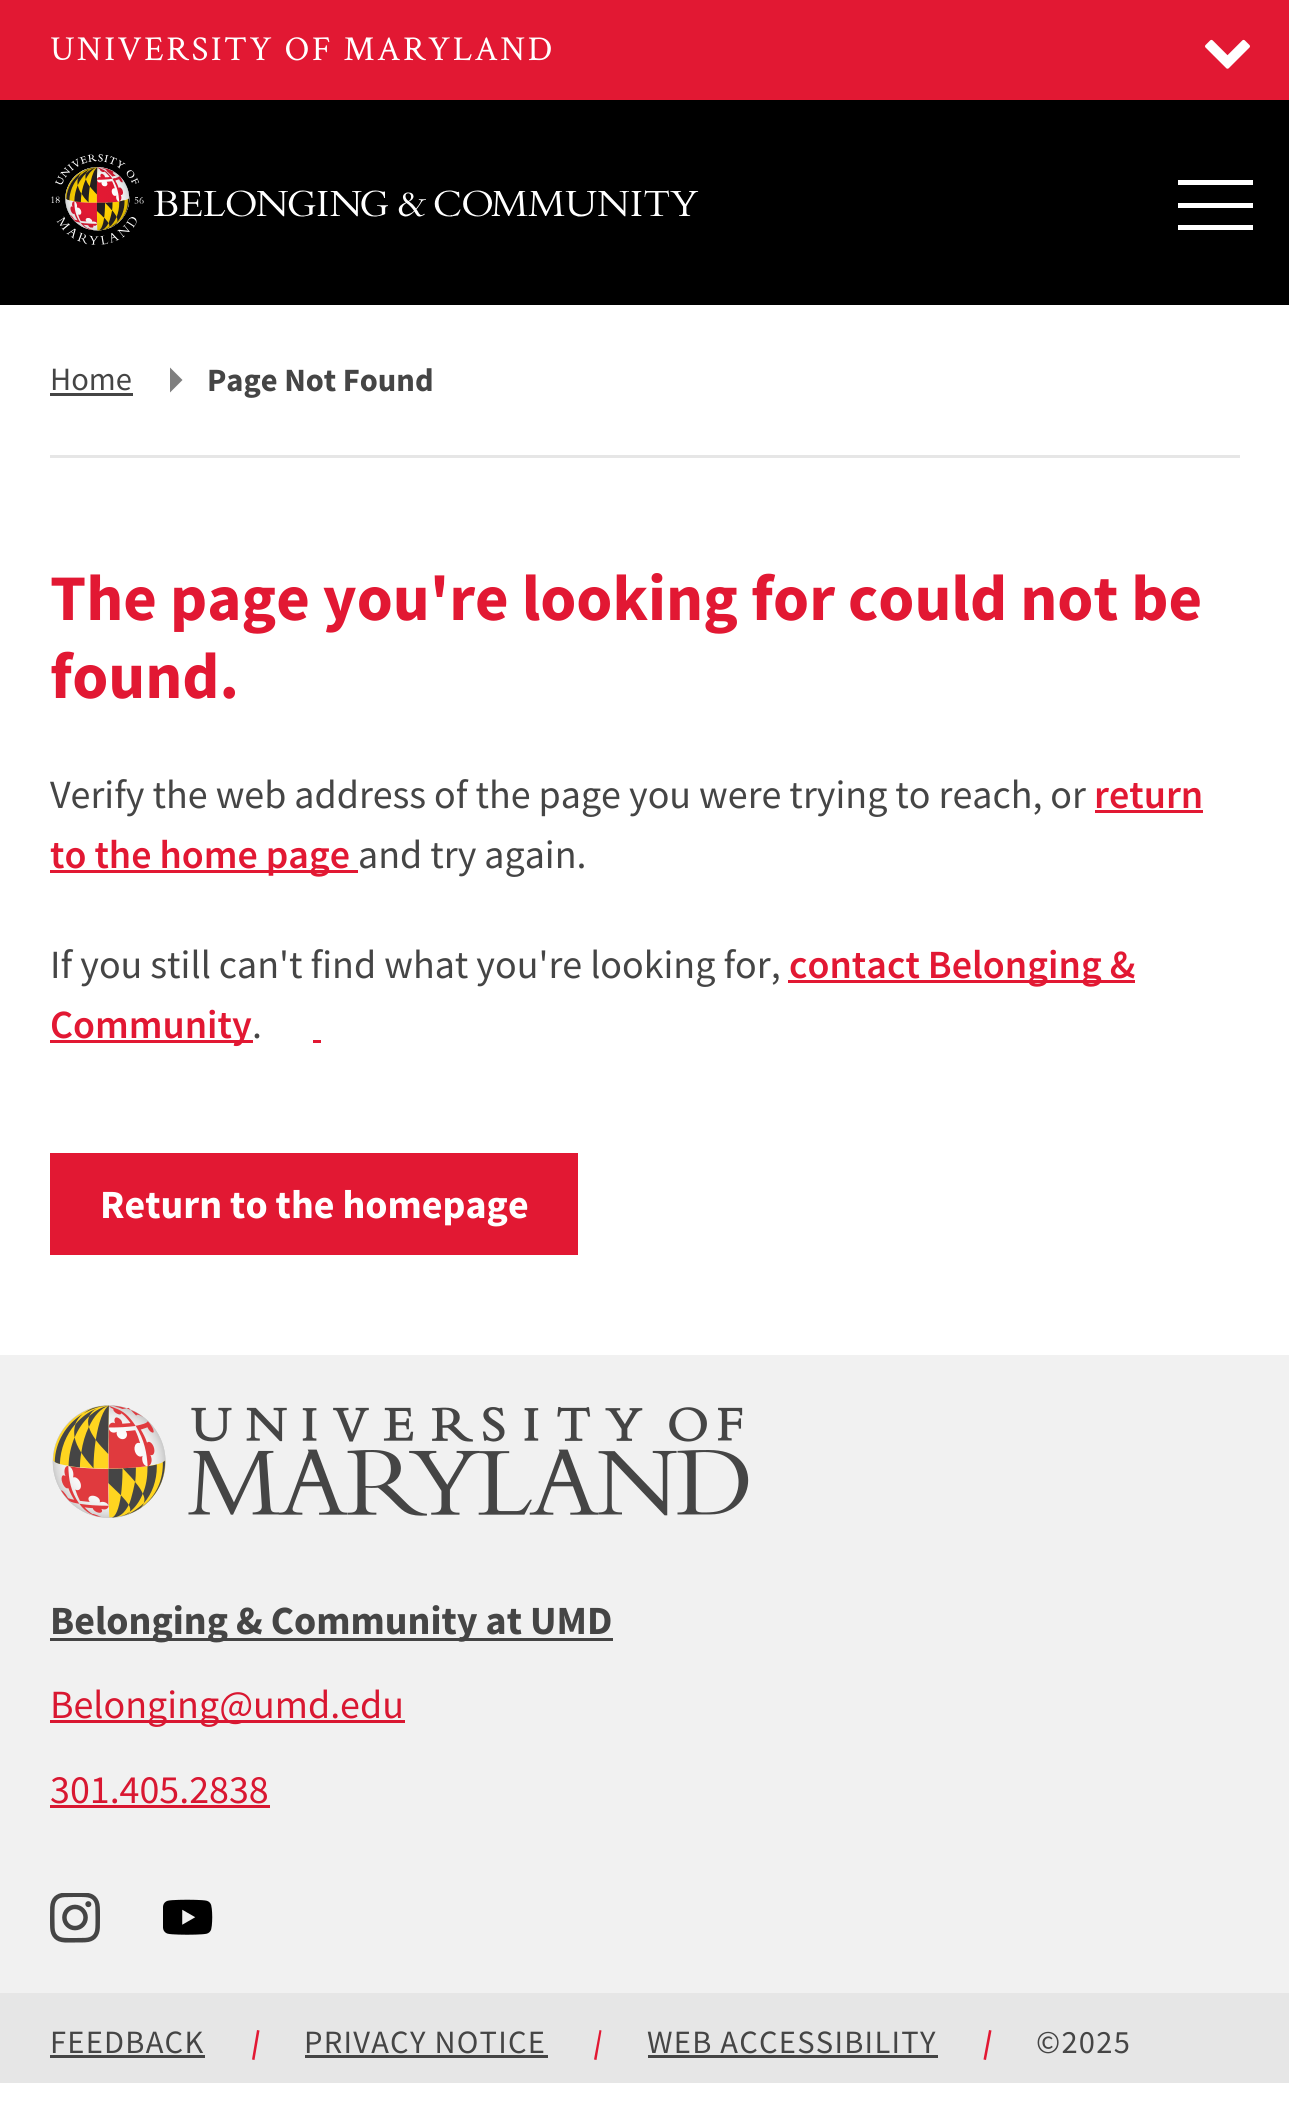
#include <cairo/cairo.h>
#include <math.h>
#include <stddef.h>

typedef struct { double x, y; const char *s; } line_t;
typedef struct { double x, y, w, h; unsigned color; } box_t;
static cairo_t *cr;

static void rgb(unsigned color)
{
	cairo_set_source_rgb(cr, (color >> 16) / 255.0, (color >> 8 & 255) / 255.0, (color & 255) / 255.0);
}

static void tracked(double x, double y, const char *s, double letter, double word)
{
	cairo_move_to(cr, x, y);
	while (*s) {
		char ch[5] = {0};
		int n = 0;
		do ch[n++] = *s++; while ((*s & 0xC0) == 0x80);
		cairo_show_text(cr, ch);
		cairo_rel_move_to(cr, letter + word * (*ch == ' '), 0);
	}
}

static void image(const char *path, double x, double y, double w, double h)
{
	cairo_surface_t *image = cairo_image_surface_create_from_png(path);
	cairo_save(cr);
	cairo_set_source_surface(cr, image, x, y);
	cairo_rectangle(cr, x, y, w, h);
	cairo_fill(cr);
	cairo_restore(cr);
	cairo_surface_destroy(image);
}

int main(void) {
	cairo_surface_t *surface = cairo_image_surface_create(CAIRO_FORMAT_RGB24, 1289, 2128);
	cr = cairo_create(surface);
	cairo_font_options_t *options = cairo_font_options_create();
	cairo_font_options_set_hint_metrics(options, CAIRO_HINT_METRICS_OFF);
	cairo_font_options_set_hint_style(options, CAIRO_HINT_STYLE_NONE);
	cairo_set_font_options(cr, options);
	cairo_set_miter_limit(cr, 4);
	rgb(0xffffff);
	cairo_paint(cr);
	rgb(0xe21833);
	cairo_rectangle(cr, 0, 0, 1289, 100);
	cairo_fill(cr);
	image("img/1.png", 1205, 39, 45, 30);
	rgb(0x000000);
	cairo_rectangle(cr, 0, 100, 1289, 205);
	cairo_fill(cr);
	image("img/2.png", 51, 154, 648, 91);
	{
		static const box_t items[] = {
			{1178, 180, 75, 5, 0xffffff},
			{1178, 203, 75, 5, 0xffffff},
			{1178, 225, 75, 5, 0xffffff},
			{50, 455, 1190, 3, 0xe6e6e6},
			{50, 393, 83, 3, 0x454545},
		};
		for (size_t i = 0; i < sizeof items / sizeof *items; i++) {
			rgb(items[i].color);
			cairo_rectangle(cr, items[i].x, items[i].y, items[i].w, items[i].h);
			cairo_fill(cr);
		}
	}
	rgb(0x7f7f7f);
	cairo_new_path(cr);
	cairo_move_to(cr, 170, 392.5);
	cairo_line_to(cr, 170, 367.5);
	cairo_line_to(cr, 182.5, 380);
	cairo_close_path(cr);
	cairo_fill(cr);
	{
		static const box_t items[] = {
			{1095, 810, 108, 3, 0xe21833},
			{50, 870, 308, 3, 0xe21833},
			{788, 980, 347, 3, 0xe21833},
			{50, 1040, 203, 3, 0xe21833},
			{313, 1040, 8, 3, 0xe21833},
			{50, 1153, 528, 102, 0xe21833},
			{0, 1355, 1289, 638, 0xf1f1f1},
		};
		for (size_t i = 0; i < sizeof items / sizeof *items; i++) {
			rgb(items[i].color);
			cairo_rectangle(cr, items[i].x, items[i].y, items[i].w, items[i].h);
			cairo_fill(cr);
		}
	}
	image("img/3.png", 52, 1405, 697, 113);
	{
		static const box_t items[] = {
			{50, 1638, 563, 3, 0x454545},
			{50, 1720, 355, 3, 0xd91731},
			{50, 1805, 220, 3, 0xd91731},
		};
		for (size_t i = 0; i < sizeof items / sizeof *items; i++) {
			rgb(items[i].color);
			cairo_rectangle(cr, items[i].x, items[i].y, items[i].w, items[i].h);
			cairo_fill(cr);
		}
	}
	image("img/4.png", 50, 1893, 50, 50);
	image("img/5.png", 163, 1899, 50, 36);
	rgb(0xe6e6e6);
	cairo_rectangle(cr, 0, 1993, 1289, 90);
	cairo_fill(cr);
	rgb(0x454545);
	cairo_rectangle(cr, 50, 2055, 155, 3);
	cairo_fill(cr);
	rgb(0xe21833);
	cairo_new_path(cr);
	cairo_move_to(cr, 257, 2030);
	cairo_line_to(cr, 259.5, 2030.5);
	cairo_line_to(cr, 254.5, 2060);
	cairo_line_to(cr, 252, 2059.5);
	cairo_close_path(cr);
	cairo_fill(cr);
	rgb(0x454545);
	cairo_rectangle(cr, 305, 2055, 243, 3);
	cairo_fill(cr);
	rgb(0xe21833);
	cairo_new_path(cr);
	cairo_move_to(cr, 599.5, 2030);
	cairo_line_to(cr, 601.5, 2030.5);
	cairo_line_to(cr, 596.5, 2060);
	cairo_line_to(cr, 594, 2059.5);
	cairo_close_path(cr);
	cairo_fill(cr);
	rgb(0x454545);
	cairo_rectangle(cr, 648, 2055, 290, 3);
	cairo_fill(cr);
	rgb(0xe21833);
	cairo_new_path(cr);
	cairo_move_to(cr, 989, 2030);
	cairo_line_to(cr, 991.5, 2030.5);
	cairo_line_to(cr, 986, 2060);
	cairo_line_to(cr, 983.5, 2059.5);
	cairo_close_path(cr);
	cairo_fill(cr);
	cairo_select_font_face(cr, "Crimson Text", CAIRO_FONT_SLANT_NORMAL, CAIRO_FONT_WEIGHT_NORMAL);
	cairo_set_font_size(cr, 35);
	rgb(0xffffff);
	tracked(50, 60, "UNIVERSITY OF MARYLAND", 2.5, 0);
	cairo_select_font_face(cr, "Source Sans Pro", CAIRO_FONT_SLANT_NORMAL, CAIRO_FONT_WEIGHT_NORMAL);
	cairo_set_font_size(cr, 32.5);
	rgb(0x454545);
	cairo_move_to(cr, 50, 390);
	cairo_show_text(cr, "Home");
	cairo_select_font_face(cr, "Source Sans Pro", CAIRO_FONT_SLANT_NORMAL, CAIRO_FONT_WEIGHT_BOLD);
	cairo_move_to(cr, 207, 391);
	cairo_show_text(cr, "Page Not Found");
	cairo_set_font_size(cr, 65);
	rgb(0xe21833);
	cairo_move_to(cr, 50, 620);
	cairo_show_text(cr, "The page you're looking for could not be");
	cairo_move_to(cr, 50, 698);
	cairo_show_text(cr, "found.");
	cairo_select_font_face(cr, "Source Sans Pro", CAIRO_FONT_SLANT_NORMAL, CAIRO_FONT_WEIGHT_NORMAL);
	cairo_set_font_size(cr, 40);
	rgb(0x454545);
	cairo_move_to(cr, 50, 808);
	cairo_show_text(cr, "Verify the web address of the page you were trying to reach, or");
	cairo_select_font_face(cr, "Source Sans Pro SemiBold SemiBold", CAIRO_FONT_SLANT_NORMAL, CAIRO_FONT_WEIGHT_NORMAL);
	rgb(0xe21833);
	cairo_move_to(cr, 1094, 808);
	cairo_show_text(cr, "return");
	cairo_move_to(cr, 50, 868);
	cairo_show_text(cr, "to the home page");
	cairo_select_font_face(cr, "Source Sans Pro", CAIRO_FONT_SLANT_NORMAL, CAIRO_FONT_WEIGHT_NORMAL);
	rgb(0x454545);
	cairo_move_to(cr, 358, 868);
	cairo_show_text(cr, "and try again.");
	cairo_move_to(cr, 50, 978);
	cairo_show_text(cr, "If you still can't find what you're looking for,");
	cairo_select_font_face(cr, "Source Sans Pro SemiBold SemiBold", CAIRO_FONT_SLANT_NORMAL, CAIRO_FONT_WEIGHT_NORMAL);
	rgb(0xe21833);
	cairo_move_to(cr, 789, 978);
	cairo_show_text(cr, "contact Belonging &");
	cairo_move_to(cr, 50, 1038);
	cairo_show_text(cr, "Community");
	cairo_select_font_face(cr, "Source Sans Pro", CAIRO_FONT_SLANT_NORMAL, CAIRO_FONT_WEIGHT_NORMAL);
	rgb(0x454545);
	cairo_move_to(cr, 252, 1038);
	cairo_show_text(cr, ".");
	cairo_select_font_face(cr, "Source Sans Pro", CAIRO_FONT_SLANT_NORMAL, CAIRO_FONT_WEIGHT_BOLD);
	rgb(0xffffff);
	cairo_move_to(cr, 100, 1218);
	cairo_show_text(cr, "Return to the homepage");
	rgb(0x454545);
	cairo_move_to(cr, 50, 1634);
	cairo_show_text(cr, "Belonging & Community at UMD");
	cairo_select_font_face(cr, "Source Sans Pro", CAIRO_FONT_SLANT_NORMAL, CAIRO_FONT_WEIGHT_NORMAL);
	rgb(0xd91731);
	cairo_move_to(cr, 50, 1718);
	cairo_show_text(cr, "Belonging@umd.edu");
	cairo_move_to(cr, 50, 1803);
	cairo_show_text(cr, "301.405.2838");
	cairo_set_font_size(cr, 32.5);
	rgb(0x454545);
	{
		static const line_t items[] = {
			{50, 2053, "FEEDBACK"},
			{304, 2053, "PRIVACY NOTICE"},
			{647, 2053, "WEB ACCESSIBILITY"},
			{1036, 2053, "©2025"},
		};
		for (size_t i = 0; i < sizeof items / sizeof *items; i++) {
			tracked(items[i].x, items[i].y, items[i].s, 1.25, 0);
		}
	}
	cairo_surface_write_to_png(surface, "page.png");
	cairo_font_options_destroy(options);
	cairo_destroy(cr);
	cairo_surface_destroy(surface);
	return 0;
}
